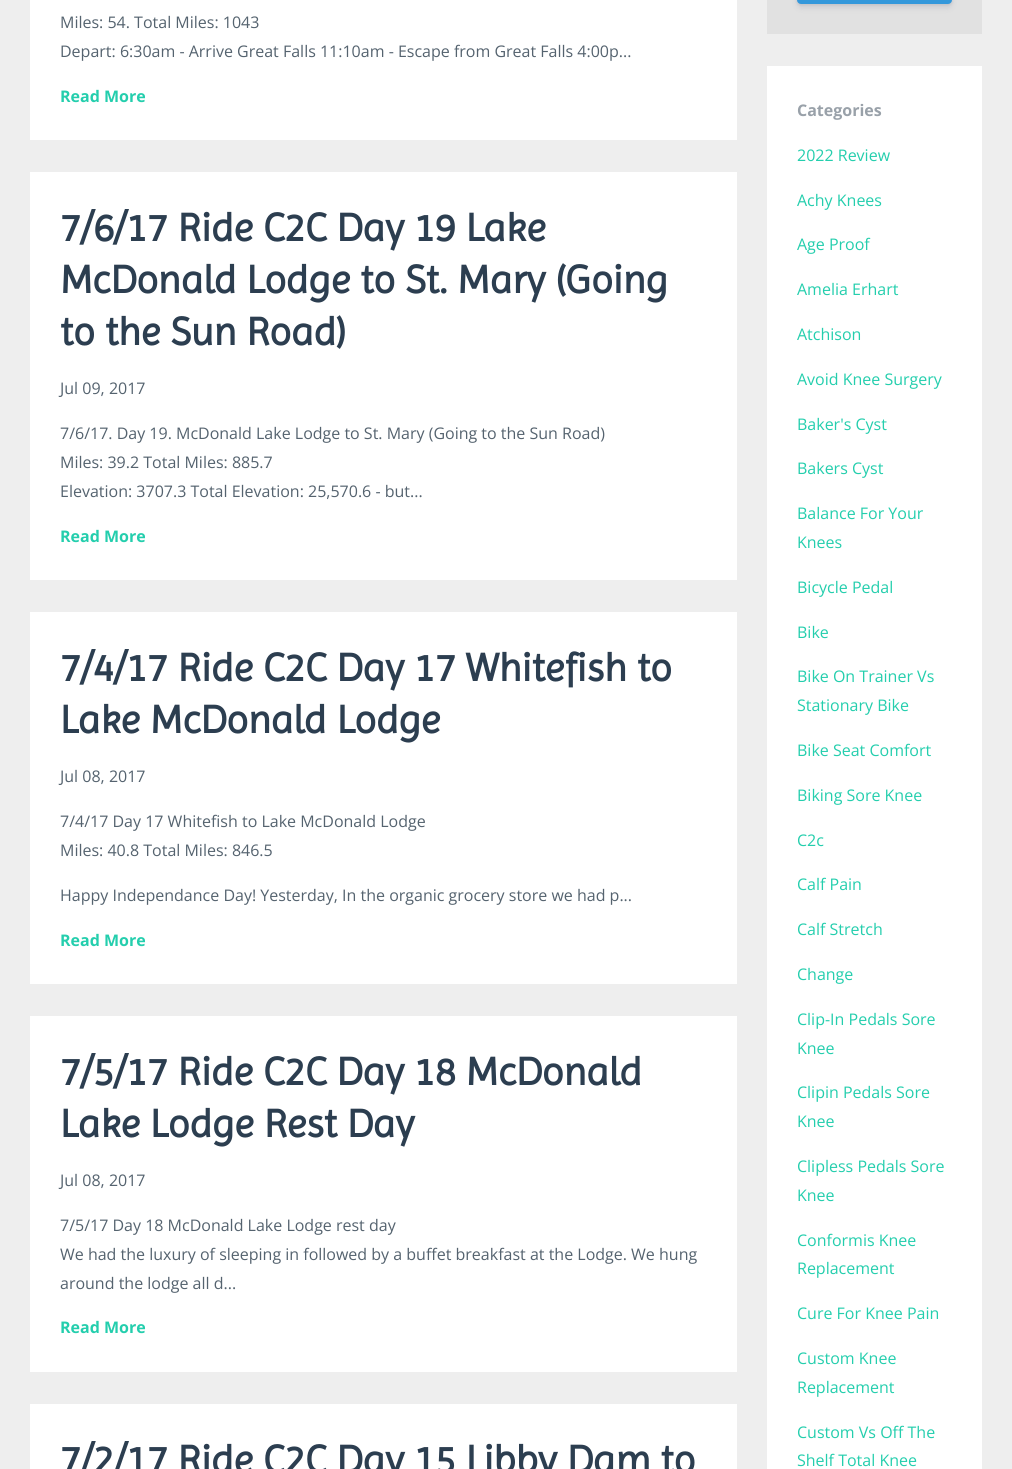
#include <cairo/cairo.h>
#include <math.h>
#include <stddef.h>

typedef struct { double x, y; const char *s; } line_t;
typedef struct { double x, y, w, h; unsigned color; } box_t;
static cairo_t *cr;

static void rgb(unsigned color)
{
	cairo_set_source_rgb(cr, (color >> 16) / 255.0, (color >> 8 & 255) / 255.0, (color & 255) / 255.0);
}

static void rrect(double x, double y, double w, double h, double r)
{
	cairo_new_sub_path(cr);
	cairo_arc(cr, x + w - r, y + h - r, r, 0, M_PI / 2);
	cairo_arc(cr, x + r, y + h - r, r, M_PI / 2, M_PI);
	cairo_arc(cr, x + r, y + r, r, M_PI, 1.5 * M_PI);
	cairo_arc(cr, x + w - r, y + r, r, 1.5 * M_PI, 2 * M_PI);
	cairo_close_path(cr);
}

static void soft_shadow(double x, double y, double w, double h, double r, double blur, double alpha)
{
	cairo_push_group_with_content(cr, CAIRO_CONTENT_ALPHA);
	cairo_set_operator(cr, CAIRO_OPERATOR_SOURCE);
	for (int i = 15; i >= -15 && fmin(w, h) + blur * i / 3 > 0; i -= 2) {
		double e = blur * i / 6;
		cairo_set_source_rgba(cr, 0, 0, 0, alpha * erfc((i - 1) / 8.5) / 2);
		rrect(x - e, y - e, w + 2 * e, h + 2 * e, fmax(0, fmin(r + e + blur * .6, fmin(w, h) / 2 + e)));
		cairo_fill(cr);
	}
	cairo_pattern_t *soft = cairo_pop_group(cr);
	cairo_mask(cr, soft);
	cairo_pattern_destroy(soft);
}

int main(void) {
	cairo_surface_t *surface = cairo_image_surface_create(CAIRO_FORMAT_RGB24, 1012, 1469);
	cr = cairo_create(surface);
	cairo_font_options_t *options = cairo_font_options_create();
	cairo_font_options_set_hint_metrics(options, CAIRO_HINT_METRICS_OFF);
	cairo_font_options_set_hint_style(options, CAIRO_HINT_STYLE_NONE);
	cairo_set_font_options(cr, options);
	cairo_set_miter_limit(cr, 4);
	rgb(0xeeeeee);
	cairo_paint(cr);
	{
		static const box_t items[] = {
			{30, 0, 707, 140, 0xffffff},
			{30, 172, 707, 408, 0xffffff},
			{30, 612, 707, 372, 0xffffff},
			{30, 1016, 707, 356, 0xffffff},
			{30, 1404, 707, 65, 0xffffff},
			{767, 0, 215, 34, 0xe1e1e1},
		};
		for (size_t i = 0; i < sizeof items / sizeof *items; i++) {
			rgb(items[i].color);
			cairo_rectangle(cr, items[i].x, items[i].y, items[i].w, items[i].h);
			cairo_fill(cr);
		}
	}
	rgb(0x000000);
	soft_shadow(797, -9, 155, 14, 4, 1.5, 0.08);
	rgb(0x32325d);
	soft_shadow(797, -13, 155, 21, 4, 3, 0.11);
	rgb(0x3498db);
	rrect(798, -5, 153, 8, 3);
	cairo_fill_preserve(cr);
	cairo_stroke(cr);
	rgb(0xffffff);
	cairo_rectangle(cr, 767, 66, 215, 1403);
	cairo_fill(cr);
	cairo_select_font_face(cr, "Open Sans", CAIRO_FONT_SLANT_NORMAL, CAIRO_FONT_WEIGHT_NORMAL);
	cairo_set_font_size(cr, 16);
	rgb(0x55636f);
	cairo_move_to(cr, 60, 28);
	cairo_show_text(cr, "Miles: 54. Total Miles: 1043");
	cairo_move_to(cr, 60, 57);
	cairo_show_text(cr, "Depart: 6:30am - Arrive Great Falls 11:10am - Escape from Great Falls 4:00p...");
	cairo_select_font_face(cr, "Open Sans", CAIRO_FONT_SLANT_NORMAL, CAIRO_FONT_WEIGHT_BOLD);
	rgb(0x24cead);
	cairo_move_to(cr, 60, 102);
	cairo_show_text(cr, "Read More");
	cairo_select_font_face(cr, "Imprima", CAIRO_FONT_SLANT_NORMAL, CAIRO_FONT_WEIGHT_BOLD);
	cairo_set_font_size(cr, 40);
	rgb(0x2c3e50);
	{
		static const line_t items[] = {
			{60, 241, "7/6/17 Ride C2C Day 19 Lake"},
			{60, 293, "McDonald Lodge to St. Mary (Going"},
			{60, 345, "to the Sun Road)"},
		};
		for (size_t i = 0; i < sizeof items / sizeof *items; i++) {
			cairo_move_to(cr, items[i].x, items[i].y);
			cairo_show_text(cr, items[i].s);
		}
	}
	cairo_select_font_face(cr, "Open Sans", CAIRO_FONT_SLANT_NORMAL, CAIRO_FONT_WEIGHT_NORMAL);
	cairo_set_font_size(cr, 16);
	rgb(0x55636f);
	{
		static const line_t items[] = {
			{60, 394, "Jul 09, 2017"},
			{60, 439, "7/6/17. Day 19. McDonald Lake Lodge to St. Mary (Going to the Sun Road)"},
			{60, 468, "Miles: 39.2 Total Miles: 885.7"},
			{60, 497, "Elevation: 3707.3 Total Elevation: 25,570.6 - but..."},
		};
		for (size_t i = 0; i < sizeof items / sizeof *items; i++) {
			cairo_move_to(cr, items[i].x, items[i].y);
			cairo_show_text(cr, items[i].s);
		}
	}
	cairo_select_font_face(cr, "Open Sans", CAIRO_FONT_SLANT_NORMAL, CAIRO_FONT_WEIGHT_BOLD);
	rgb(0x24cead);
	cairo_move_to(cr, 60, 542);
	cairo_show_text(cr, "Read More");
	cairo_select_font_face(cr, "Imprima", CAIRO_FONT_SLANT_NORMAL, CAIRO_FONT_WEIGHT_BOLD);
	cairo_set_font_size(cr, 40);
	rgb(0x2c3e50);
	cairo_move_to(cr, 60, 681);
	cairo_show_text(cr, "7/4/17 Ride C2C Day 17 Whitefish to");
	cairo_move_to(cr, 60, 733);
	cairo_show_text(cr, "Lake McDonald Lodge");
	cairo_select_font_face(cr, "Open Sans", CAIRO_FONT_SLANT_NORMAL, CAIRO_FONT_WEIGHT_NORMAL);
	cairo_set_font_size(cr, 16);
	rgb(0x55636f);
	{
		static const line_t items[] = {
			{60, 782, "Jul 08, 2017"},
			{60, 827, "7/4/17 Day 17 Whitefish to Lake McDonald Lodge"},
			{60, 856, "Miles: 40.8 Total Miles: 846.5"},
			{60, 901, "Happy Independance Day! Yesterday, In the organic grocery store we had p..."},
		};
		for (size_t i = 0; i < sizeof items / sizeof *items; i++) {
			cairo_move_to(cr, items[i].x, items[i].y);
			cairo_show_text(cr, items[i].s);
		}
	}
	cairo_select_font_face(cr, "Open Sans", CAIRO_FONT_SLANT_NORMAL, CAIRO_FONT_WEIGHT_BOLD);
	rgb(0x24cead);
	cairo_move_to(cr, 60, 946);
	cairo_show_text(cr, "Read More");
	cairo_select_font_face(cr, "Imprima", CAIRO_FONT_SLANT_NORMAL, CAIRO_FONT_WEIGHT_BOLD);
	cairo_set_font_size(cr, 40);
	rgb(0x2c3e50);
	cairo_move_to(cr, 60, 1085);
	cairo_show_text(cr, "7/5/17 Ride C2C Day 18 McDonald");
	cairo_move_to(cr, 60, 1137);
	cairo_show_text(cr, "Lake Lodge Rest Day");
	cairo_select_font_face(cr, "Open Sans", CAIRO_FONT_SLANT_NORMAL, CAIRO_FONT_WEIGHT_NORMAL);
	cairo_set_font_size(cr, 16);
	rgb(0x55636f);
	{
		static const line_t items[] = {
			{60, 1186, "Jul 08, 2017"},
			{60, 1231, "7/5/17 Day 18 McDonald Lake Lodge rest day"},
			{60, 1260, "We had the luxury of sleeping in followed by a buffet breakfast at the Lodge. We hung"},
			{60, 1289, "around the lodge all d..."},
		};
		for (size_t i = 0; i < sizeof items / sizeof *items; i++) {
			cairo_move_to(cr, items[i].x, items[i].y);
			cairo_show_text(cr, items[i].s);
		}
	}
	cairo_select_font_face(cr, "Open Sans", CAIRO_FONT_SLANT_NORMAL, CAIRO_FONT_WEIGHT_BOLD);
	rgb(0x24cead);
	cairo_move_to(cr, 60, 1333);
	cairo_show_text(cr, "Read More");
	cairo_select_font_face(cr, "Imprima", CAIRO_FONT_SLANT_NORMAL, CAIRO_FONT_WEIGHT_BOLD);
	cairo_set_font_size(cr, 40);
	rgb(0x2c3e50);
	cairo_move_to(cr, 60, 1473);
	cairo_show_text(cr, "7/2/17 Ride C2C Day 15 Libby Dam to");
	cairo_select_font_face(cr, "Open Sans", CAIRO_FONT_SLANT_NORMAL, CAIRO_FONT_WEIGHT_BOLD);
	cairo_set_font_size(cr, 16);
	rgb(0x99a1a9);
	cairo_move_to(cr, 797, 116);
	cairo_show_text(cr, "Categories");
	cairo_select_font_face(cr, "Open Sans", CAIRO_FONT_SLANT_NORMAL, CAIRO_FONT_WEIGHT_NORMAL);
	rgb(0x24cead);
	{
		static const line_t items[] = {
			{797, 161, "2022 Review"},
			{797, 206, "Achy Knees"},
			{797, 250, "Age Proof"},
			{797, 295, "Amelia Erhart"},
			{797, 340, "Atchison"},
			{797, 385, "Avoid Knee Surgery"},
			{797, 430, "Baker's Cyst"},
			{797, 474, "Bakers Cyst"},
			{797, 519, "Balance For Your"},
			{797, 548, "Knees"},
			{797, 593, "Bicycle Pedal"},
			{797, 638, "Bike"},
			{797, 682, "Bike On Trainer Vs"},
			{797, 711, "Stationary Bike"},
			{797, 756, "Bike Seat Comfort"},
			{797, 801, "Biking Sore Knee"},
			{797, 846, "C2c"},
			{797, 890, "Calf Pain"},
			{797, 935, "Calf Stretch"},
			{797, 980, "Change"},
			{797, 1025, "Clip-In Pedals Sore"},
			{797, 1054, "Knee"},
			{797, 1098, "Clipin Pedals Sore"},
			{797, 1127, "Knee"},
			{797, 1172, "Clipless Pedals Sore"},
			{797, 1201, "Knee"},
			{797, 1246, "Conformis Knee"},
			{797, 1274, "Replacement"},
			{797, 1319, "Cure For Knee Pain"},
			{797, 1364, "Custom Knee"},
			{797, 1393, "Replacement"},
			{797, 1438, "Custom Vs Off The"},
			{797, 1466, "Shelf Total Knee"},
		};
		for (size_t i = 0; i < sizeof items / sizeof *items; i++) {
			cairo_move_to(cr, items[i].x, items[i].y);
			cairo_show_text(cr, items[i].s);
		}
	}
	cairo_surface_write_to_png(surface, "page.png");
	cairo_font_options_destroy(options);
	cairo_destroy(cr);
	cairo_surface_destroy(surface);
	return 0;
}
